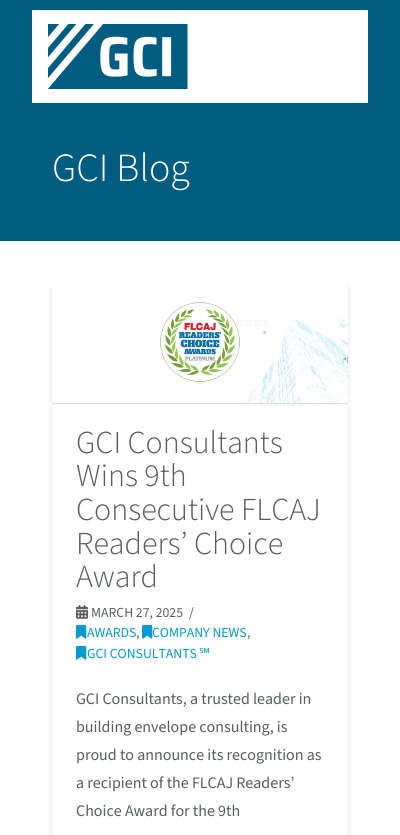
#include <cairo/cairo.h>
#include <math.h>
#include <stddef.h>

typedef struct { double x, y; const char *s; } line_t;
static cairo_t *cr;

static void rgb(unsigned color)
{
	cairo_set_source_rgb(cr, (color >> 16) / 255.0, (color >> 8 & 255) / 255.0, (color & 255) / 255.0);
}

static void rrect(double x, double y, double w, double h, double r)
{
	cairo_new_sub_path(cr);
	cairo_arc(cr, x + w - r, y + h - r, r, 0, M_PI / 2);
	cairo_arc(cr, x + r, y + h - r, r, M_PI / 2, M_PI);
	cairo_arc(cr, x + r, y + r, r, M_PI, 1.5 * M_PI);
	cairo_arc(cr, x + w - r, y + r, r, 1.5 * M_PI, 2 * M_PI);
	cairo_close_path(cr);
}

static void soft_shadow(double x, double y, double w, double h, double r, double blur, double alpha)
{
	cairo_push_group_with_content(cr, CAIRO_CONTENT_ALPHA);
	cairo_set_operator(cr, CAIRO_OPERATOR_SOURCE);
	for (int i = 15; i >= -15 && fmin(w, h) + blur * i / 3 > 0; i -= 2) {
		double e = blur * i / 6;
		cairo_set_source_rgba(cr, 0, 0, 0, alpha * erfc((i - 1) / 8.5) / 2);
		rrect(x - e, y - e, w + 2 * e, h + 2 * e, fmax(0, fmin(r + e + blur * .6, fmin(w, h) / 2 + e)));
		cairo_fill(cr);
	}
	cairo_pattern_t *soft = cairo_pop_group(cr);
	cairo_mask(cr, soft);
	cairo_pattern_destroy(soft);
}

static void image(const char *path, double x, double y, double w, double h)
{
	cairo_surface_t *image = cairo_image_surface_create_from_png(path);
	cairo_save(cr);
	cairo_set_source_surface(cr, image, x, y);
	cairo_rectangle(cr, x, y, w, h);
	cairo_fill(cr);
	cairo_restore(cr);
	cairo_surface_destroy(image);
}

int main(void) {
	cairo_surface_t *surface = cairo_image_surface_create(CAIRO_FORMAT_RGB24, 400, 835);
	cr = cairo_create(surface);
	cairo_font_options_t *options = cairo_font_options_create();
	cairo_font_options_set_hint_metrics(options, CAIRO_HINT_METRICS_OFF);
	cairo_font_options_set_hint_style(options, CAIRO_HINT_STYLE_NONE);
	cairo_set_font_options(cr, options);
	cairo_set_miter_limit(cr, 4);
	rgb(0xffffff);
	cairo_paint(cr);
	rgb(0x005c81);
	cairo_rectangle(cr, 0, 0, 400, 241);
	cairo_fill(cr);
	rgb(0xffffff);
	cairo_rectangle(cr, 32, 10, 336, 93);
	cairo_fill(cr);
	image("img/1.png", 48, 24, 140, 65);
	rgb(0x000000);
	soft_shadow(52, 287, 288, 115, 0, 2, 0.13);
	soft_shadow(60, 287, 288, 115, 0, 2, 0.13);
	cairo_save(cr);
	cairo_set_fill_rule(cr, CAIRO_FILL_RULE_EVEN_ODD);
	cairo_new_path(cr);
	cairo_move_to(cr, 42, 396);
	cairo_line_to(cr, 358, 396);
	cairo_line_to(cr, 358, 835);
	cairo_line_to(cr, 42, 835);
	cairo_close_path(cr);
	cairo_move_to(cr, 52, 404);
	cairo_line_to(cr, 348, 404);
	cairo_line_to(cr, 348, 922);
	cairo_curve_to(cr, 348, 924, 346, 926, 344, 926);
	cairo_line_to(cr, 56, 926);
	cairo_curve_to(cr, 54, 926, 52, 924, 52, 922);
	cairo_close_path(cr);
	cairo_clip(cr);
	soft_shadow(52, 406, 296, 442, 4, 3, 0.13);
	cairo_restore(cr);
	rgb(0xdddddd);
	cairo_rectangle(cr, 52, 403, 296, 1);
	cairo_fill(cr);
	image("img/2.png", 52, 281, 296, 122);
	image("img/3.png", 76, 605, 12, 14);
	image("img/4.png", 76, 625, 11, 14);
	image("img/4.png", 142, 625, 11, 14);
	image("img/4.png", 76, 646, 11, 14);
	cairo_select_font_face(cr, "Source Sans 3 Light", CAIRO_FONT_SLANT_NORMAL, CAIRO_FONT_WEIGHT_NORMAL);
	cairo_set_font_size(cr, 40);
	rgb(0xffffff);
	cairo_move_to(cr, 52, 181);
	cairo_show_text(cr, "GCI Blog");
	cairo_set_font_size(cr, 32);
	rgb(0x585d62);
	{
		static const line_t items[] = {
			{76, 453, "GCI Consultants"},
			{76, 486, "Wins 9th"},
			{76, 520, "Consecutive FLCAJ"},
			{76, 554, "Readers’ Choice"},
			{76, 587, "Award"},
		};
		for (size_t i = 0; i < sizeof items / sizeof *items; i++) {
			cairo_move_to(cr, items[i].x, items[i].y);
			cairo_show_text(cr, items[i].s);
		}
	}
	cairo_select_font_face(cr, "Source Sans 3", CAIRO_FONT_SLANT_NORMAL, CAIRO_FONT_WEIGHT_NORMAL);
	cairo_set_font_size(cr, 13.75);
	cairo_move_to(cr, 91, 617);
	cairo_show_text(cr, "MARCH 27, 2025");
	cairo_move_to(cr, 189, 617);
	cairo_show_text(cr, "/");
	rgb(0x0799d2);
	cairo_move_to(cr, 87, 637);
	cairo_show_text(cr, "AWARDS");
	rgb(0x585d62);
	cairo_move_to(cr, 136, 637);
	cairo_show_text(cr, ",");
	rgb(0x0799d2);
	cairo_move_to(cr, 152, 637);
	cairo_show_text(cr, "COMPANY NEWS");
	rgb(0x585d62);
	cairo_move_to(cr, 247, 637);
	cairo_show_text(cr, ",");
	rgb(0x0799d2);
	cairo_move_to(cr, 87, 658);
	cairo_show_text(cr, "GCI CONSULTANTS");
	cairo_select_font_face(cr, "Noto Sans", CAIRO_FONT_SLANT_NORMAL, CAIRO_FONT_WEIGHT_NORMAL);
	cairo_move_to(cr, 199, 658);
	cairo_show_text(cr, "℠");
	cairo_select_font_face(cr, "Source Sans 3", CAIRO_FONT_SLANT_NORMAL, CAIRO_FONT_WEIGHT_NORMAL);
	cairo_set_font_size(cr, 16);
	rgb(0x585d62);
	{
		static const line_t items[] = {
			{76, 704, "GCI Consultants, a trusted leader in"},
			{76, 732, "building envelope consulting, is"},
			{76, 760, "proud to announce its recognition as"},
			{76, 788, "a recipient of the FLCAJ Readers’"},
			{76, 816, "Choice Award for the 9th"},
		};
		for (size_t i = 0; i < sizeof items / sizeof *items; i++) {
			cairo_move_to(cr, items[i].x, items[i].y);
			cairo_show_text(cr, items[i].s);
		}
	}
	cairo_surface_write_to_png(surface, "page.png");
	cairo_font_options_destroy(options);
	cairo_destroy(cr);
	cairo_surface_destroy(surface);
	return 0;
}
